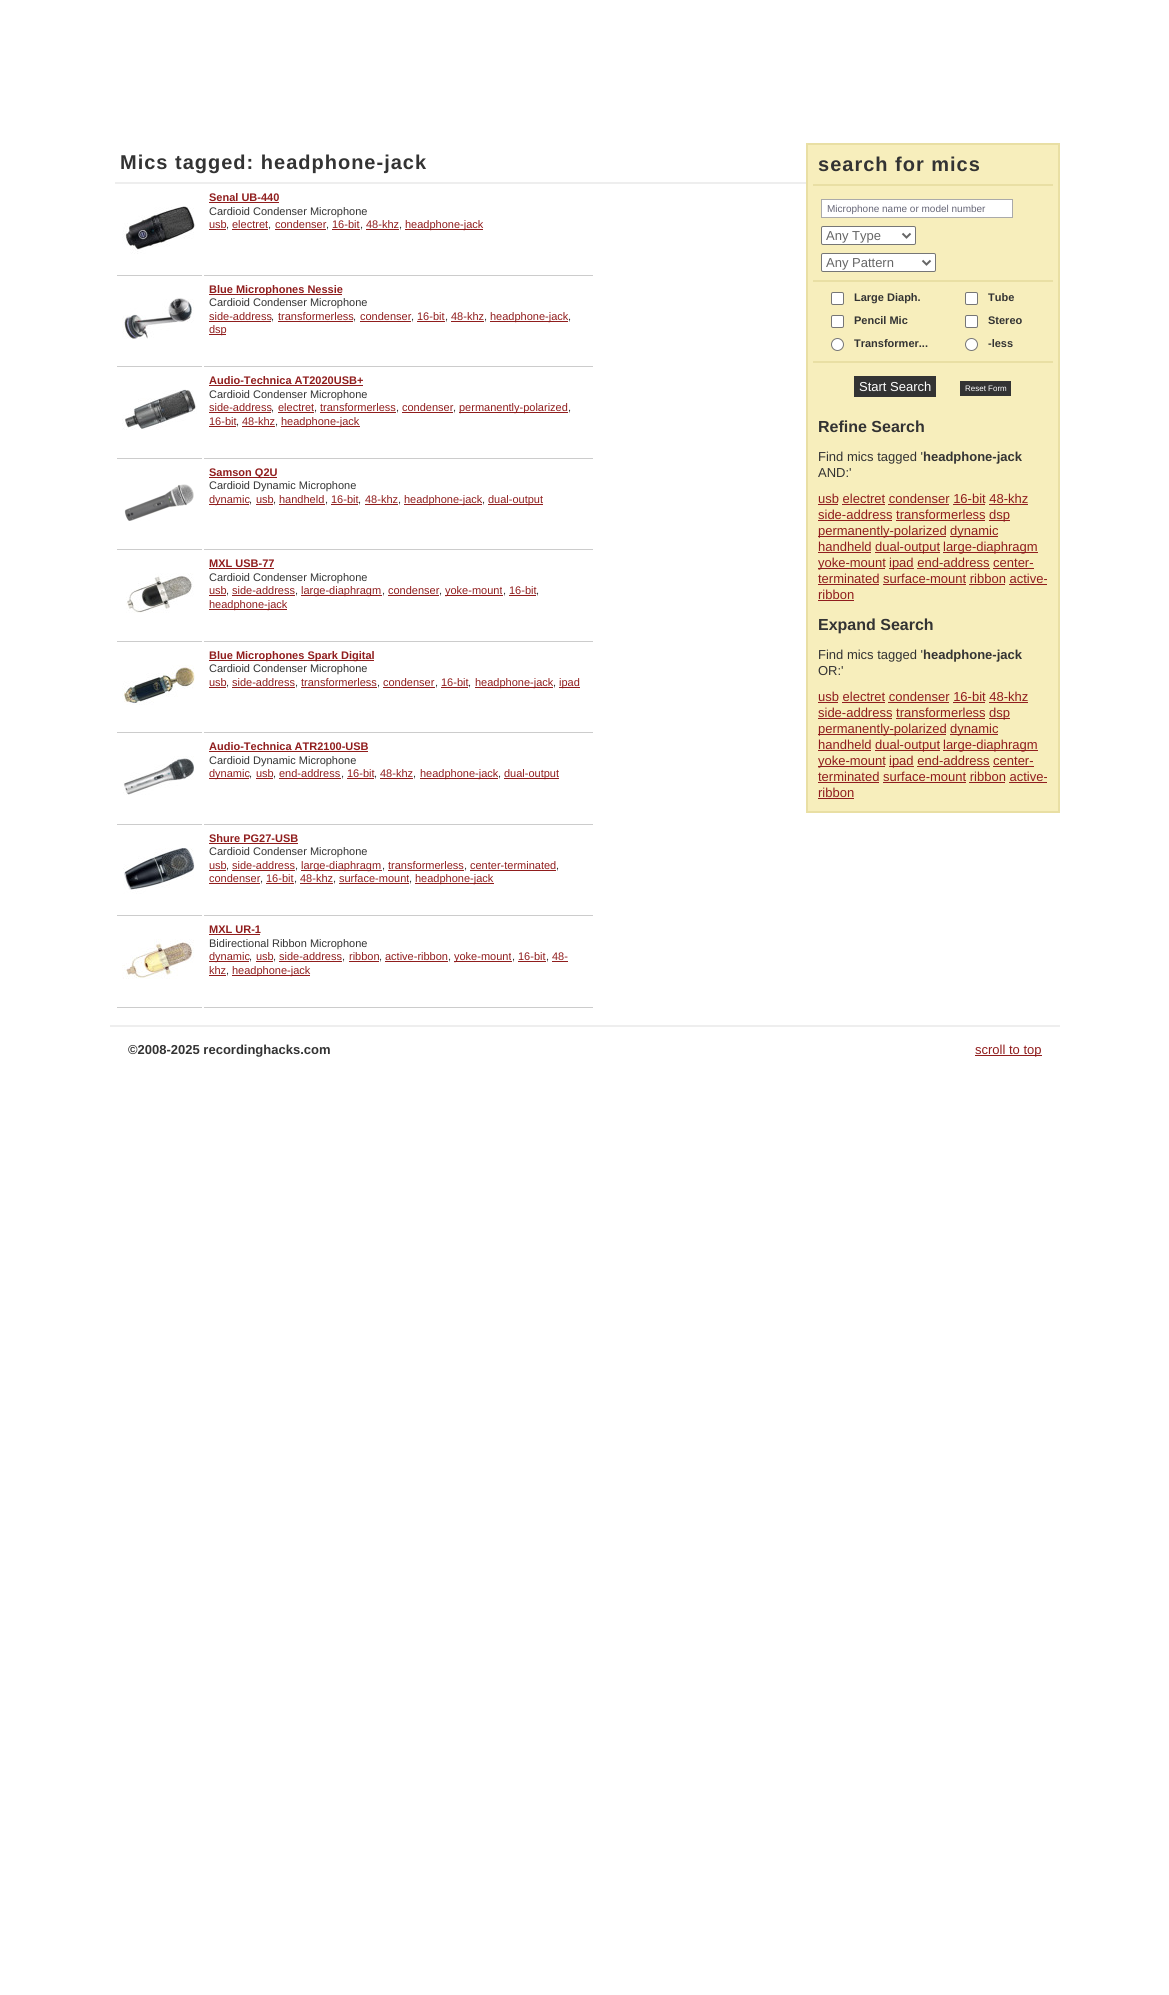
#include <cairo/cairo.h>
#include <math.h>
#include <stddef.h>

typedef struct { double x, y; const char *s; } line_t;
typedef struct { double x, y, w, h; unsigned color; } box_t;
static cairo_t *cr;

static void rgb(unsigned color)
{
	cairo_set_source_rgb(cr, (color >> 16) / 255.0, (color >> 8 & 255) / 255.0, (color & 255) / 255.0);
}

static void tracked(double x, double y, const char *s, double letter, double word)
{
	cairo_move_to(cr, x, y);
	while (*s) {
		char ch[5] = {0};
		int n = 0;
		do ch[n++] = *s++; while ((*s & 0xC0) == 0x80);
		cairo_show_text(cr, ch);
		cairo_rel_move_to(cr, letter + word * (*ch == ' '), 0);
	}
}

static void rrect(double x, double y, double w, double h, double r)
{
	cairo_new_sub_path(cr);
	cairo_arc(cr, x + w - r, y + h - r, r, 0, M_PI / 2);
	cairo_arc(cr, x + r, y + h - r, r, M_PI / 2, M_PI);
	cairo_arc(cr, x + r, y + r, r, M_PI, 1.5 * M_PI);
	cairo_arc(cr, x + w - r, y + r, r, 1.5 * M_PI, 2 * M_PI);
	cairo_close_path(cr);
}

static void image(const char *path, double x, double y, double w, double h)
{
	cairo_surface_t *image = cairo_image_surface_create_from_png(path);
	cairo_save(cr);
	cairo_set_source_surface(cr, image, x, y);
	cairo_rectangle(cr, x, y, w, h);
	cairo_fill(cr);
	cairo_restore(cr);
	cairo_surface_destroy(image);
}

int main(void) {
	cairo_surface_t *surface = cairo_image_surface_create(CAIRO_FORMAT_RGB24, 1169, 1995);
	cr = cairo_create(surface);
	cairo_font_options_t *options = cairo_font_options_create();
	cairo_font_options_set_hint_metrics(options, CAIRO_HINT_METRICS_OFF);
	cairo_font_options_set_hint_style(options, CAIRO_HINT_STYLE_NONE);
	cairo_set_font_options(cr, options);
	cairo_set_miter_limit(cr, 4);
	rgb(0xffffff);
	cairo_paint(cr);
	rgb(0xeeeeee);
	cairo_rectangle(cr, 115, 182, 691, 2);
	cairo_fill(cr);
	rgb(0xcccccc);
	cairo_rectangle(cr, 117, 275, 85, 1);
	cairo_fill(cr);
	image("img/1.png", 122, 206, 74, 48);
	{
		static const box_t items[] = {
			{204, 275, 389, 1, 0xcccccc},
			{209, 202, 70, 1, 0x901d1d},
			{209, 229, 17, 1, 0x901d1d},
			{232, 229, 36, 1, 0x901d1d},
			{275, 229, 51, 1, 0x901d1d},
			{332, 229, 28, 1, 0x901d1d},
			{366, 229, 33, 1, 0x901d1d},
			{405, 229, 78, 1, 0x901d1d},
			{117, 366, 85, 1, 0xcccccc},
		};
		for (size_t i = 0; i < sizeof items / sizeof *items; i++) {
			rgb(items[i].color);
			cairo_rectangle(cr, items[i].x, items[i].y, items[i].w, items[i].h);
			cairo_fill(cr);
		}
	}
	image("img/2.png", 122, 297, 72, 42);
	{
		static const box_t items[] = {
			{204, 366, 389, 1, 0xcccccc},
			{209, 294, 133, 1, 0x901d1d},
			{209, 321, 62, 1, 0x901d1d},
			{278, 321, 75, 1, 0x901d1d},
			{360, 321, 51, 1, 0x901d1d},
			{417, 321, 28, 1, 0x901d1d},
			{451, 321, 33, 1, 0x901d1d},
			{490, 321, 78, 1, 0x901d1d},
			{209, 334, 17, 1, 0x901d1d},
			{117, 458, 85, 1, 0xcccccc},
		};
		for (size_t i = 0; i < sizeof items / sizeof *items; i++) {
			rgb(items[i].color);
			cairo_rectangle(cr, items[i].x, items[i].y, items[i].w, items[i].h);
			cairo_fill(cr);
		}
	}
	image("img/3.png", 122, 389, 75, 41);
	{
		static const box_t items[] = {
			{204, 458, 389, 1, 0xcccccc},
			{209, 385, 154, 1, 0x901d1d},
			{209, 412, 62, 1, 0x901d1d},
			{278, 412, 36, 1, 0x901d1d},
			{320, 412, 76, 1, 0x901d1d},
			{402, 412, 51, 1, 0x901d1d},
			{459, 412, 109, 1, 0x901d1d},
			{209, 426, 27, 1, 0x901d1d},
			{242, 426, 33, 1, 0x901d1d},
			{281, 426, 79, 1, 0x901d1d},
			{117, 549, 85, 1, 0xcccccc},
		};
		for (size_t i = 0; i < sizeof items / sizeof *items; i++) {
			rgb(items[i].color);
			cairo_rectangle(cr, items[i].x, items[i].y, items[i].w, items[i].h);
			cairo_fill(cr);
		}
	}
	image("img/4.png", 124, 484, 70, 37);
	{
		static const box_t items[] = {
			{204, 549, 389, 1, 0xcccccc},
			{209, 477, 68, 1, 0x901d1d},
			{209, 504, 40, 1, 0x901d1d},
			{256, 504, 17, 1, 0x901d1d},
			{279, 504, 46, 1, 0x901d1d},
			{331, 504, 27, 1, 0x901d1d},
			{365, 504, 33, 1, 0x901d1d},
			{404, 504, 78, 1, 0x901d1d},
			{488, 504, 55, 1, 0x901d1d},
			{117, 641, 85, 1, 0xcccccc},
		};
		for (size_t i = 0; i < sizeof items / sizeof *items; i++) {
			rgb(items[i].color);
			cairo_rectangle(cr, items[i].x, items[i].y, items[i].w, items[i].h);
			cairo_fill(cr);
		}
	}
	image("img/5.png", 126, 573, 68, 40);
	{
		static const box_t items[] = {
			{204, 641, 389, 1, 0xcccccc},
			{209, 568, 65, 1, 0x901d1d},
			{209, 595, 17, 1, 0x901d1d},
			{232, 595, 63, 1, 0x901d1d},
			{301, 595, 81, 1, 0x901d1d},
			{388, 595, 51, 1, 0x901d1d},
			{445, 595, 58, 1, 0x901d1d},
			{509, 595, 27, 1, 0x901d1d},
			{209, 609, 78, 1, 0x901d1d},
			{117, 732, 85, 1, 0xcccccc},
		};
		for (size_t i = 0; i < sizeof items / sizeof *items; i++) {
			rgb(items[i].color);
			cairo_rectangle(cr, items[i].x, items[i].y, items[i].w, items[i].h);
			cairo_fill(cr);
		}
	}
	image("img/6.png", 122, 665, 73, 40);
	{
		static const box_t items[] = {
			{204, 732, 389, 1, 0xcccccc},
			{209, 660, 165, 1, 0x901d1d},
			{209, 687, 17, 1, 0x901d1d},
			{232, 687, 63, 1, 0x901d1d},
			{301, 687, 76, 1, 0x901d1d},
			{383, 687, 52, 1, 0x901d1d},
			{441, 687, 27, 1, 0x901d1d},
			{475, 687, 78, 1, 0x901d1d},
			{559, 687, 21, 1, 0x901d1d},
			{117, 824, 85, 1, 0xcccccc},
		};
		for (size_t i = 0; i < sizeof items / sizeof *items; i++) {
			rgb(items[i].color);
			cairo_rectangle(cr, items[i].x, items[i].y, items[i].w, items[i].h);
			cairo_fill(cr);
		}
	}
	image("img/7.png", 123, 756, 71, 39);
	{
		static const box_t items[] = {
			{204, 824, 389, 1, 0xcccccc},
			{209, 751, 159, 1, 0x901d1d},
			{209, 778, 40, 1, 0x901d1d},
			{256, 778, 17, 1, 0x901d1d},
			{279, 778, 62, 1, 0x901d1d},
			{347, 778, 27, 1, 0x901d1d},
			{380, 778, 33, 1, 0x901d1d},
			{420, 778, 78, 1, 0x901d1d},
			{504, 778, 55, 1, 0x901d1d},
			{117, 915, 85, 1, 0xcccccc},
		};
		for (size_t i = 0; i < sizeof items / sizeof *items; i++) {
			rgb(items[i].color);
			cairo_rectangle(cr, items[i].x, items[i].y, items[i].w, items[i].h);
			cairo_fill(cr);
		}
	}
	image("img/8.png", 123, 848, 72, 46);
	{
		static const box_t items[] = {
			{204, 915, 389, 1, 0xcccccc},
			{209, 843, 89, 1, 0x901d1d},
			{209, 870, 17, 1, 0x901d1d},
			{232, 870, 63, 1, 0x901d1d},
			{301, 870, 81, 1, 0x901d1d},
			{388, 870, 76, 1, 0x901d1d},
			{470, 870, 86, 1, 0x901d1d},
			{209, 883, 51, 1, 0x901d1d},
			{266, 883, 28, 1, 0x901d1d},
			{300, 883, 33, 1, 0x901d1d},
			{339, 883, 70, 1, 0x901d1d},
			{415, 883, 79, 1, 0x901d1d},
			{117, 1007, 85, 1, 0xcccccc},
		};
		for (size_t i = 0; i < sizeof items / sizeof *items; i++) {
			rgb(items[i].color);
			cairo_rectangle(cr, items[i].x, items[i].y, items[i].w, items[i].h);
			cairo_fill(cr);
		}
	}
	image("img/9.png", 122, 939, 72, 40);
	{
		static const box_t items[] = {
			{204, 1007, 389, 1, 0xcccccc},
			{209, 934, 51, 1, 0x901d1d},
			{209, 961, 40, 1, 0x901d1d},
			{256, 961, 17, 1, 0x901d1d},
			{279, 961, 63, 1, 0x901d1d},
			{349, 961, 30, 1, 0x901d1d},
			{385, 961, 63, 1, 0x901d1d},
			{454, 961, 58, 1, 0x901d1d},
			{518, 961, 28, 1, 0x901d1d},
			{552, 961, 16, 1, 0x901d1d},
			{209, 975, 17, 1, 0x901d1d},
			{232, 975, 78, 1, 0x901d1d},
		};
		for (size_t i = 0; i < sizeof items / sizeof *items; i++) {
			rgb(items[i].color);
			cairo_rectangle(cr, items[i].x, items[i].y, items[i].w, items[i].h);
			cairo_fill(cr);
		}
	}
	rgb(0xf7eebc);
	cairo_rectangle(cr, 807, 144, 252, 668);
	cairo_fill_preserve(cr);
	rgb(0xe9dfa4);
	cairo_stroke(cr);
	cairo_rectangle(cr, 813, 184, 240, 2);
	cairo_fill(cr);
	cairo_rectangle(cr, 813, 280, 240, 2);
	cairo_fill(cr);
	rgb(0xffffff);
	cairo_rectangle(cr, 821.5, 199.5, 191, 18);
	cairo_fill_preserve(cr);
	rgb(0xaaaaaa);
	cairo_set_line_width(cr, 1);
	cairo_stroke(cr);
	rgb(0xffffff);
	rrect(821.5, 226.5, 94, 18, 1.5);
	cairo_fill_preserve(cr);
	rgb(0x767676);
	cairo_stroke(cr);
	cairo_new_path(cr);
	cairo_move_to(cr, 902.5, 233.5);
	cairo_line_to(cr, 906.5, 237.5);
	cairo_line_to(cr, 910.5, 233.5);
	rgb(0x666666);
	cairo_set_line_width(cr, 2);
	cairo_stroke(cr);
	rgb(0xffffff);
	rrect(821.5, 253.5, 114, 18, 1.5);
	cairo_fill_preserve(cr);
	rgb(0x767676);
	cairo_set_line_width(cr, 1);
	cairo_stroke(cr);
	cairo_new_path(cr);
	cairo_move_to(cr, 922.5, 260.5);
	cairo_line_to(cr, 926.5, 264.5);
	cairo_line_to(cr, 930.5, 260.5);
	rgb(0x666666);
	cairo_set_line_width(cr, 2);
	cairo_stroke(cr);
	rgb(0xe9dfa4);
	cairo_rectangle(cr, 813, 361, 240, 2);
	cairo_fill(cr);
	rgb(0xffffff);
	rrect(831.5, 292.5, 12, 12, 1.5);
	cairo_fill_preserve(cr);
	rgb(0x767676);
	cairo_set_line_width(cr, 1);
	cairo_stroke(cr);
	rgb(0xffffff);
	rrect(965.5, 292.5, 12, 12, 1.5);
	cairo_fill_preserve(cr);
	rgb(0x767676);
	cairo_stroke(cr);
	rgb(0xffffff);
	rrect(965.5, 315.5, 12, 12, 1.5);
	cairo_fill_preserve(cr);
	rgb(0x767676);
	cairo_stroke(cr);
	rgb(0xffffff);
	cairo_arc(cr, 971.5, 344.5, 6, 0, 2 * M_PI);
	cairo_fill_preserve(cr);
	rgb(0x767676);
	cairo_stroke(cr);
	rgb(0xffffff);
	rrect(831.5, 315.5, 12, 12, 1.5);
	cairo_fill_preserve(cr);
	rgb(0x767676);
	cairo_stroke(cr);
	rgb(0xffffff);
	cairo_arc(cr, 837.5, 344.5, 6, 0, 2 * M_PI);
	cairo_fill_preserve(cr);
	rgb(0x767676);
	cairo_stroke(cr);
	{
		static const box_t items[] = {
			{854, 376, 82, 21, 0x333333},
			{960, 381, 51, 15, 0x333333},
			{818, 504, 20, 1, 0x901d1d},
			{842, 504, 43, 1, 0x901d1d},
			{888, 504, 61, 1, 0x901d1d},
			{953, 504, 32, 1, 0x901d1d},
			{989, 504, 39, 1, 0x901d1d},
			{818, 520, 74, 1, 0x901d1d},
			{989, 520, 21, 1, 0x901d1d},
			{896, 520, 89, 1, 0x901d1d},
			{818, 536, 128, 1, 0x901d1d},
			{950, 536, 48, 1, 0x901d1d},
			{818, 552, 53, 1, 0x901d1d},
			{875, 552, 65, 1, 0x901d1d},
			{943, 552, 95, 1, 0x901d1d},
			{818, 568, 67, 1, 0x901d1d},
			{889, 568, 25, 1, 0x901d1d},
			{917, 568, 73, 1, 0x901d1d},
			{993, 568, 41, 1, 0x901d1d},
			{818, 584, 61, 1, 0x901d1d},
			{883, 584, 83, 1, 0x901d1d},
			{969, 584, 36, 1, 0x901d1d},
			{1009, 584, 38, 1, 0x901d1d},
			{818, 600, 36, 1, 0x901d1d},
			{818, 702, 20, 1, 0x901d1d},
			{842, 702, 43, 1, 0x901d1d},
			{888, 702, 61, 1, 0x901d1d},
			{953, 702, 32, 1, 0x901d1d},
			{989, 702, 39, 1, 0x901d1d},
			{818, 718, 74, 1, 0x901d1d},
			{989, 718, 21, 1, 0x901d1d},
			{896, 718, 89, 1, 0x901d1d},
			{818, 734, 128, 1, 0x901d1d},
			{950, 734, 48, 1, 0x901d1d},
			{818, 750, 53, 1, 0x901d1d},
			{875, 750, 65, 1, 0x901d1d},
			{943, 750, 95, 1, 0x901d1d},
			{818, 766, 67, 1, 0x901d1d},
			{889, 766, 25, 1, 0x901d1d},
			{917, 766, 73, 1, 0x901d1d},
			{993, 766, 41, 1, 0x901d1d},
			{818, 782, 61, 1, 0x901d1d},
			{883, 782, 83, 1, 0x901d1d},
			{969, 782, 36, 1, 0x901d1d},
			{1009, 782, 38, 1, 0x901d1d},
			{818, 798, 36, 1, 0x901d1d},
			{110, 1025, 950, 2, 0xeeeeee},
			{975, 1055, 67, 1, 0x901d1d},
		};
		for (size_t i = 0; i < sizeof items / sizeof *items; i++) {
			rgb(items[i].color);
			cairo_rectangle(cr, items[i].x, items[i].y, items[i].w, items[i].h);
			cairo_fill(cr);
		}
	}
	cairo_select_font_face(cr, "Liberation Sans", CAIRO_FONT_SLANT_NORMAL, CAIRO_FONT_WEIGHT_BOLD);
	cairo_set_font_size(cr, 20);
	rgb(0x333333);
	tracked(120, 169, "Mics tagged: headphone-jack", 1, 0);
	cairo_set_font_size(cr, 11);
	rgb(0x901d1d);
	cairo_move_to(cr, 209, 201);
	cairo_show_text(cr, "Senal UB-440");
	cairo_select_font_face(cr, "Liberation Sans", CAIRO_FONT_SLANT_NORMAL, CAIRO_FONT_WEIGHT_NORMAL);
	rgb(0x333333);
	cairo_move_to(cr, 209, 215);
	cairo_show_text(cr, "Cardioid Condenser Microphone");
	rgb(0x901d1d);
	cairo_move_to(cr, 209, 228);
	cairo_show_text(cr, "usb");
	rgb(0x333333);
	cairo_move_to(cr, 226, 228);
	cairo_show_text(cr, ",");
	rgb(0x901d1d);
	cairo_move_to(cr, 232, 228);
	cairo_show_text(cr, "electret");
	rgb(0x333333);
	cairo_move_to(cr, 268, 228);
	cairo_show_text(cr, ",");
	rgb(0x901d1d);
	cairo_move_to(cr, 275, 228);
	cairo_show_text(cr, "condenser");
	rgb(0x333333);
	cairo_move_to(cr, 326, 228);
	cairo_show_text(cr, ",");
	rgb(0x901d1d);
	cairo_move_to(cr, 332, 228);
	cairo_show_text(cr, "16-bit");
	rgb(0x333333);
	cairo_move_to(cr, 360, 228);
	cairo_show_text(cr, ",");
	rgb(0x901d1d);
	cairo_move_to(cr, 366, 228);
	cairo_show_text(cr, "48-khz");
	rgb(0x333333);
	cairo_move_to(cr, 399, 228);
	cairo_show_text(cr, ",");
	rgb(0x901d1d);
	cairo_move_to(cr, 405, 228);
	cairo_show_text(cr, "headphone-jack");
	cairo_select_font_face(cr, "Liberation Sans", CAIRO_FONT_SLANT_NORMAL, CAIRO_FONT_WEIGHT_BOLD);
	cairo_move_to(cr, 209, 293);
	cairo_show_text(cr, "Blue Microphones Nessie");
	cairo_select_font_face(cr, "Liberation Sans", CAIRO_FONT_SLANT_NORMAL, CAIRO_FONT_WEIGHT_NORMAL);
	rgb(0x333333);
	cairo_move_to(cr, 209, 306);
	cairo_show_text(cr, "Cardioid Condenser Microphone");
	rgb(0x901d1d);
	cairo_move_to(cr, 209, 320);
	cairo_show_text(cr, "side-address");
	rgb(0x333333);
	cairo_move_to(cr, 271, 320);
	cairo_show_text(cr, ",");
	rgb(0x901d1d);
	cairo_move_to(cr, 278, 320);
	cairo_show_text(cr, "transformerless");
	rgb(0x333333);
	cairo_move_to(cr, 353, 320);
	cairo_show_text(cr, ",");
	rgb(0x901d1d);
	cairo_move_to(cr, 360, 320);
	cairo_show_text(cr, "condenser");
	rgb(0x333333);
	cairo_move_to(cr, 411, 320);
	cairo_show_text(cr, ",");
	rgb(0x901d1d);
	cairo_move_to(cr, 417, 320);
	cairo_show_text(cr, "16-bit");
	rgb(0x333333);
	cairo_move_to(cr, 445, 320);
	cairo_show_text(cr, ",");
	rgb(0x901d1d);
	cairo_move_to(cr, 451, 320);
	cairo_show_text(cr, "48-khz");
	rgb(0x333333);
	cairo_move_to(cr, 484, 320);
	cairo_show_text(cr, ",");
	rgb(0x901d1d);
	cairo_move_to(cr, 490, 320);
	cairo_show_text(cr, "headphone-jack");
	rgb(0x333333);
	cairo_move_to(cr, 568, 320);
	cairo_show_text(cr, ",");
	rgb(0x901d1d);
	cairo_move_to(cr, 209, 333);
	cairo_show_text(cr, "dsp");
	cairo_select_font_face(cr, "Liberation Sans", CAIRO_FONT_SLANT_NORMAL, CAIRO_FONT_WEIGHT_BOLD);
	cairo_move_to(cr, 209, 384);
	cairo_show_text(cr, "Audio-Technica AT2020USB+");
	cairo_select_font_face(cr, "Liberation Sans", CAIRO_FONT_SLANT_NORMAL, CAIRO_FONT_WEIGHT_NORMAL);
	rgb(0x333333);
	cairo_move_to(cr, 209, 398);
	cairo_show_text(cr, "Cardioid Condenser Microphone");
	rgb(0x901d1d);
	cairo_move_to(cr, 209, 411);
	cairo_show_text(cr, "side-address");
	rgb(0x333333);
	cairo_move_to(cr, 271, 411);
	cairo_show_text(cr, ",");
	rgb(0x901d1d);
	cairo_move_to(cr, 278, 411);
	cairo_show_text(cr, "electret");
	rgb(0x333333);
	cairo_move_to(cr, 314, 411);
	cairo_show_text(cr, ",");
	rgb(0x901d1d);
	cairo_move_to(cr, 320, 411);
	cairo_show_text(cr, "transformerless");
	rgb(0x333333);
	cairo_move_to(cr, 396, 411);
	cairo_show_text(cr, ",");
	rgb(0x901d1d);
	cairo_move_to(cr, 402, 411);
	cairo_show_text(cr, "condenser");
	rgb(0x333333);
	cairo_move_to(cr, 453, 411);
	cairo_show_text(cr, ",");
	rgb(0x901d1d);
	cairo_move_to(cr, 459, 411);
	cairo_show_text(cr, "permanently-polarized");
	rgb(0x333333);
	cairo_move_to(cr, 568, 411);
	cairo_show_text(cr, ",");
	rgb(0x901d1d);
	cairo_move_to(cr, 209, 425);
	cairo_show_text(cr, "16-bit");
	rgb(0x333333);
	cairo_move_to(cr, 236, 425);
	cairo_show_text(cr, ",");
	rgb(0x901d1d);
	cairo_move_to(cr, 242, 425);
	cairo_show_text(cr, "48-khz");
	rgb(0x333333);
	cairo_move_to(cr, 275, 425);
	cairo_show_text(cr, ",");
	rgb(0x901d1d);
	cairo_move_to(cr, 281, 425);
	cairo_show_text(cr, "headphone-jack");
	cairo_select_font_face(cr, "Liberation Sans", CAIRO_FONT_SLANT_NORMAL, CAIRO_FONT_WEIGHT_BOLD);
	cairo_move_to(cr, 209, 476);
	cairo_show_text(cr, "Samson Q2U");
	cairo_select_font_face(cr, "Liberation Sans", CAIRO_FONT_SLANT_NORMAL, CAIRO_FONT_WEIGHT_NORMAL);
	rgb(0x333333);
	cairo_move_to(cr, 209, 489);
	cairo_show_text(cr, "Cardioid Dynamic Microphone");
	rgb(0x901d1d);
	cairo_move_to(cr, 209, 503);
	cairo_show_text(cr, "dynamic");
	rgb(0x333333);
	cairo_move_to(cr, 249, 503);
	cairo_show_text(cr, ",");
	rgb(0x901d1d);
	cairo_move_to(cr, 256, 503);
	cairo_show_text(cr, "usb");
	rgb(0x333333);
	cairo_move_to(cr, 273, 503);
	cairo_show_text(cr, ",");
	rgb(0x901d1d);
	cairo_move_to(cr, 279, 503);
	cairo_show_text(cr, "handheld");
	rgb(0x333333);
	cairo_move_to(cr, 325, 503);
	cairo_show_text(cr, ",");
	rgb(0x901d1d);
	cairo_move_to(cr, 331, 503);
	cairo_show_text(cr, "16-bit");
	rgb(0x333333);
	cairo_move_to(cr, 358, 503);
	cairo_show_text(cr, ",");
	rgb(0x901d1d);
	cairo_move_to(cr, 365, 503);
	cairo_show_text(cr, "48-khz");
	rgb(0x333333);
	cairo_move_to(cr, 398, 503);
	cairo_show_text(cr, ",");
	rgb(0x901d1d);
	cairo_move_to(cr, 404, 503);
	cairo_show_text(cr, "headphone-jack");
	rgb(0x333333);
	cairo_move_to(cr, 482, 503);
	cairo_show_text(cr, ",");
	rgb(0x901d1d);
	cairo_move_to(cr, 488, 503);
	cairo_show_text(cr, "dual-output");
	cairo_select_font_face(cr, "Liberation Sans", CAIRO_FONT_SLANT_NORMAL, CAIRO_FONT_WEIGHT_BOLD);
	cairo_move_to(cr, 209, 567);
	cairo_show_text(cr, "MXL USB-77");
	cairo_select_font_face(cr, "Liberation Sans", CAIRO_FONT_SLANT_NORMAL, CAIRO_FONT_WEIGHT_NORMAL);
	rgb(0x333333);
	cairo_move_to(cr, 209, 581);
	cairo_show_text(cr, "Cardioid Condenser Microphone");
	rgb(0x901d1d);
	cairo_move_to(cr, 209, 594);
	cairo_show_text(cr, "usb");
	rgb(0x333333);
	cairo_move_to(cr, 226, 594);
	cairo_show_text(cr, ",");
	rgb(0x901d1d);
	cairo_move_to(cr, 232, 594);
	cairo_show_text(cr, "side-address");
	rgb(0x333333);
	cairo_move_to(cr, 295, 594);
	cairo_show_text(cr, ",");
	rgb(0x901d1d);
	cairo_move_to(cr, 301, 594);
	cairo_show_text(cr, "large-diaphragm");
	rgb(0x333333);
	cairo_move_to(cr, 382, 594);
	cairo_show_text(cr, ",");
	rgb(0x901d1d);
	cairo_move_to(cr, 388, 594);
	cairo_show_text(cr, "condenser");
	rgb(0x333333);
	cairo_move_to(cr, 439, 594);
	cairo_show_text(cr, ",");
	rgb(0x901d1d);
	cairo_move_to(cr, 445, 594);
	cairo_show_text(cr, "yoke-mount");
	rgb(0x333333);
	cairo_move_to(cr, 503, 594);
	cairo_show_text(cr, ",");
	rgb(0x901d1d);
	cairo_move_to(cr, 509, 594);
	cairo_show_text(cr, "16-bit");
	rgb(0x333333);
	cairo_move_to(cr, 536, 594);
	cairo_show_text(cr, ",");
	rgb(0x901d1d);
	cairo_move_to(cr, 209, 608);
	cairo_show_text(cr, "headphone-jack");
	cairo_select_font_face(cr, "Liberation Sans", CAIRO_FONT_SLANT_NORMAL, CAIRO_FONT_WEIGHT_BOLD);
	cairo_move_to(cr, 209, 659);
	cairo_show_text(cr, "Blue Microphones Spark Digital");
	cairo_select_font_face(cr, "Liberation Sans", CAIRO_FONT_SLANT_NORMAL, CAIRO_FONT_WEIGHT_NORMAL);
	rgb(0x333333);
	cairo_move_to(cr, 209, 672);
	cairo_show_text(cr, "Cardioid Condenser Microphone");
	rgb(0x901d1d);
	cairo_move_to(cr, 209, 686);
	cairo_show_text(cr, "usb");
	rgb(0x333333);
	cairo_move_to(cr, 226, 686);
	cairo_show_text(cr, ",");
	rgb(0x901d1d);
	cairo_move_to(cr, 232, 686);
	cairo_show_text(cr, "side-address");
	rgb(0x333333);
	cairo_move_to(cr, 295, 686);
	cairo_show_text(cr, ",");
	rgb(0x901d1d);
	cairo_move_to(cr, 301, 686);
	cairo_show_text(cr, "transformerless");
	rgb(0x333333);
	cairo_move_to(cr, 377, 686);
	cairo_show_text(cr, ",");
	rgb(0x901d1d);
	cairo_move_to(cr, 383, 686);
	cairo_show_text(cr, "condenser");
	rgb(0x333333);
	cairo_move_to(cr, 435, 686);
	cairo_show_text(cr, ",");
	rgb(0x901d1d);
	cairo_move_to(cr, 441, 686);
	cairo_show_text(cr, "16-bit");
	rgb(0x333333);
	cairo_move_to(cr, 468, 686);
	cairo_show_text(cr, ",");
	rgb(0x901d1d);
	cairo_move_to(cr, 475, 686);
	cairo_show_text(cr, "headphone-jack");
	rgb(0x333333);
	cairo_move_to(cr, 553, 686);
	cairo_show_text(cr, ",");
	rgb(0x901d1d);
	cairo_move_to(cr, 559, 686);
	cairo_show_text(cr, "ipad");
	cairo_select_font_face(cr, "Liberation Sans", CAIRO_FONT_SLANT_NORMAL, CAIRO_FONT_WEIGHT_BOLD);
	cairo_move_to(cr, 209, 750);
	cairo_show_text(cr, "Audio-Technica ATR2100-USB");
	cairo_select_font_face(cr, "Liberation Sans", CAIRO_FONT_SLANT_NORMAL, CAIRO_FONT_WEIGHT_NORMAL);
	rgb(0x333333);
	cairo_move_to(cr, 209, 764);
	cairo_show_text(cr, "Cardioid Dynamic Microphone");
	rgb(0x901d1d);
	cairo_move_to(cr, 209, 777);
	cairo_show_text(cr, "dynamic");
	rgb(0x333333);
	cairo_move_to(cr, 249, 777);
	cairo_show_text(cr, ",");
	rgb(0x901d1d);
	cairo_move_to(cr, 256, 777);
	cairo_show_text(cr, "usb");
	rgb(0x333333);
	cairo_move_to(cr, 273, 777);
	cairo_show_text(cr, ",");
	rgb(0x901d1d);
	cairo_move_to(cr, 279, 777);
	cairo_show_text(cr, "end-address");
	rgb(0x333333);
	cairo_move_to(cr, 341, 777);
	cairo_show_text(cr, ",");
	rgb(0x901d1d);
	cairo_move_to(cr, 347, 777);
	cairo_show_text(cr, "16-bit");
	rgb(0x333333);
	cairo_move_to(cr, 374, 777);
	cairo_show_text(cr, ",");
	rgb(0x901d1d);
	cairo_move_to(cr, 380, 777);
	cairo_show_text(cr, "48-khz");
	rgb(0x333333);
	cairo_move_to(cr, 413, 777);
	cairo_show_text(cr, ",");
	rgb(0x901d1d);
	cairo_move_to(cr, 420, 777);
	cairo_show_text(cr, "headphone-jack");
	rgb(0x333333);
	cairo_move_to(cr, 498, 777);
	cairo_show_text(cr, ",");
	rgb(0x901d1d);
	cairo_move_to(cr, 504, 777);
	cairo_show_text(cr, "dual-output");
	cairo_select_font_face(cr, "Liberation Sans", CAIRO_FONT_SLANT_NORMAL, CAIRO_FONT_WEIGHT_BOLD);
	cairo_move_to(cr, 209, 842);
	cairo_show_text(cr, "Shure PG27-USB");
	cairo_select_font_face(cr, "Liberation Sans", CAIRO_FONT_SLANT_NORMAL, CAIRO_FONT_WEIGHT_NORMAL);
	rgb(0x333333);
	cairo_move_to(cr, 209, 855);
	cairo_show_text(cr, "Cardioid Condenser Microphone");
	rgb(0x901d1d);
	cairo_move_to(cr, 209, 869);
	cairo_show_text(cr, "usb");
	rgb(0x333333);
	cairo_move_to(cr, 226, 869);
	cairo_show_text(cr, ",");
	rgb(0x901d1d);
	cairo_move_to(cr, 232, 869);
	cairo_show_text(cr, "side-address");
	rgb(0x333333);
	cairo_move_to(cr, 295, 869);
	cairo_show_text(cr, ",");
	rgb(0x901d1d);
	cairo_move_to(cr, 301, 869);
	cairo_show_text(cr, "large-diaphragm");
	rgb(0x333333);
	cairo_move_to(cr, 382, 869);
	cairo_show_text(cr, ",");
	rgb(0x901d1d);
	cairo_move_to(cr, 388, 869);
	cairo_show_text(cr, "transformerless");
	rgb(0x333333);
	cairo_move_to(cr, 464, 869);
	cairo_show_text(cr, ",");
	rgb(0x901d1d);
	cairo_move_to(cr, 470, 869);
	cairo_show_text(cr, "center-terminated");
	rgb(0x333333);
	cairo_move_to(cr, 556, 869);
	cairo_show_text(cr, ",");
	rgb(0x901d1d);
	cairo_move_to(cr, 209, 882);
	cairo_show_text(cr, "condenser");
	rgb(0x333333);
	cairo_move_to(cr, 260, 882);
	cairo_show_text(cr, ",");
	rgb(0x901d1d);
	cairo_move_to(cr, 266, 882);
	cairo_show_text(cr, "16-bit");
	rgb(0x333333);
	cairo_move_to(cr, 294, 882);
	cairo_show_text(cr, ",");
	rgb(0x901d1d);
	cairo_move_to(cr, 300, 882);
	cairo_show_text(cr, "48-khz");
	rgb(0x333333);
	cairo_move_to(cr, 333, 882);
	cairo_show_text(cr, ",");
	rgb(0x901d1d);
	cairo_move_to(cr, 339, 882);
	cairo_show_text(cr, "surface-mount");
	rgb(0x333333);
	cairo_move_to(cr, 409, 882);
	cairo_show_text(cr, ",");
	rgb(0x901d1d);
	cairo_move_to(cr, 415, 882);
	cairo_show_text(cr, "headphone-jack");
	cairo_select_font_face(cr, "Liberation Sans", CAIRO_FONT_SLANT_NORMAL, CAIRO_FONT_WEIGHT_BOLD);
	cairo_move_to(cr, 209, 933);
	cairo_show_text(cr, "MXL UR-1");
	cairo_select_font_face(cr, "Liberation Sans", CAIRO_FONT_SLANT_NORMAL, CAIRO_FONT_WEIGHT_NORMAL);
	rgb(0x333333);
	cairo_move_to(cr, 209, 947);
	cairo_show_text(cr, "Bidirectional Ribbon Microphone");
	rgb(0x901d1d);
	cairo_move_to(cr, 209, 960);
	cairo_show_text(cr, "dynamic");
	rgb(0x333333);
	cairo_move_to(cr, 249, 960);
	cairo_show_text(cr, ",");
	rgb(0x901d1d);
	cairo_move_to(cr, 256, 960);
	cairo_show_text(cr, "usb");
	rgb(0x333333);
	cairo_move_to(cr, 273, 960);
	cairo_show_text(cr, ",");
	rgb(0x901d1d);
	cairo_move_to(cr, 279, 960);
	cairo_show_text(cr, "side-address");
	rgb(0x333333);
	cairo_move_to(cr, 342, 960);
	cairo_show_text(cr, ",");
	rgb(0x901d1d);
	cairo_move_to(cr, 349, 960);
	cairo_show_text(cr, "ribbon");
	rgb(0x333333);
	cairo_move_to(cr, 379, 960);
	cairo_show_text(cr, ",");
	rgb(0x901d1d);
	cairo_move_to(cr, 385, 960);
	cairo_show_text(cr, "active-ribbon");
	rgb(0x333333);
	cairo_move_to(cr, 448, 960);
	cairo_show_text(cr, ",");
	rgb(0x901d1d);
	cairo_move_to(cr, 454, 960);
	cairo_show_text(cr, "yoke-mount");
	rgb(0x333333);
	cairo_move_to(cr, 512, 960);
	cairo_show_text(cr, ",");
	rgb(0x901d1d);
	cairo_move_to(cr, 518, 960);
	cairo_show_text(cr, "16-bit");
	rgb(0x333333);
	cairo_move_to(cr, 546, 960);
	cairo_show_text(cr, ",");
	rgb(0x901d1d);
	cairo_move_to(cr, 552, 960);
	cairo_show_text(cr, "48-");
	cairo_move_to(cr, 209, 974);
	cairo_show_text(cr, "khz");
	rgb(0x333333);
	cairo_move_to(cr, 226, 974);
	cairo_show_text(cr, ",");
	rgb(0x901d1d);
	cairo_move_to(cr, 232, 974);
	cairo_show_text(cr, "headphone-jack");
	cairo_select_font_face(cr, "Liberation Sans", CAIRO_FONT_SLANT_NORMAL, CAIRO_FONT_WEIGHT_BOLD);
	cairo_set_font_size(cr, 20);
	rgb(0x333333);
	tracked(818, 171, "search for mics", 1, 0);
	cairo_select_font_face(cr, "Liberation Sans", CAIRO_FONT_SLANT_NORMAL, CAIRO_FONT_WEIGHT_NORMAL);
	cairo_set_font_size(cr, 10);
	rgb(0x666677);
	cairo_move_to(cr, 827, 212);
	cairo_show_text(cr, "Microphone name or model number");
	cairo_set_font_size(cr, 13);
	rgb(0x666666);
	cairo_move_to(cr, 826, 240);
	cairo_show_text(cr, "Any Type");
	cairo_move_to(cr, 826, 267);
	cairo_show_text(cr, "Any Pattern");
	cairo_select_font_face(cr, "Liberation Sans", CAIRO_FONT_SLANT_NORMAL, CAIRO_FONT_WEIGHT_BOLD);
	cairo_set_font_size(cr, 11);
	rgb(0x333333);
	{
		static const line_t items[] = {
			{854, 301, "Large Diaph."},
			{988, 301, "Tube"},
			{988, 324, "Stereo"},
			{988, 347, "-less"},
			{854, 324, "Pencil Mic"},
			{854, 347, "Transformer..."},
		};
		for (size_t i = 0; i < sizeof items / sizeof *items; i++) {
			cairo_move_to(cr, items[i].x, items[i].y);
			cairo_show_text(cr, items[i].s);
		}
	}
	cairo_select_font_face(cr, "Liberation Sans", CAIRO_FONT_SLANT_NORMAL, CAIRO_FONT_WEIGHT_NORMAL);
	cairo_set_font_size(cr, 13);
	rgb(0xffffff);
	cairo_move_to(cr, 859, 391);
	cairo_show_text(cr, "Start Search");
	cairo_set_font_size(cr, 8);
	cairo_move_to(cr, 965, 391);
	cairo_show_text(cr, "Reset Form");
	cairo_select_font_face(cr, "Liberation Sans", CAIRO_FONT_SLANT_NORMAL, CAIRO_FONT_WEIGHT_BOLD);
	cairo_set_font_size(cr, 16);
	rgb(0x333333);
	cairo_move_to(cr, 818, 432);
	cairo_show_text(cr, "Refine Search");
	cairo_select_font_face(cr, "Liberation Sans", CAIRO_FONT_SLANT_NORMAL, CAIRO_FONT_WEIGHT_NORMAL);
	cairo_set_font_size(cr, 13);
	cairo_move_to(cr, 818, 461);
	cairo_show_text(cr, "Find mics tagged '");
	cairo_select_font_face(cr, "Liberation Sans", CAIRO_FONT_SLANT_NORMAL, CAIRO_FONT_WEIGHT_BOLD);
	cairo_move_to(cr, 923, 461);
	cairo_show_text(cr, "headphone-jack");
	cairo_select_font_face(cr, "Liberation Sans", CAIRO_FONT_SLANT_NORMAL, CAIRO_FONT_WEIGHT_NORMAL);
	cairo_move_to(cr, 818, 477);
	cairo_show_text(cr, "AND:'");
	rgb(0x901d1d);
	{
		static const line_t items[] = {
			{818, 503, "usb electret condenser 16-bit 48-khz"},
			{818, 519, "side-address transformerless"},
			{989, 519, "dsp"},
			{818, 535, "permanently-polarized"},
			{950, 535, "dynamic"},
			{818, 551, "handheld"},
			{875, 551, "dual-output"},
			{943, 551, "large-diaphragm"},
			{818, 567, "yoke-mount"},
			{889, 567, "ipad end-address center-"},
			{818, 583, "terminated surface-mount ribbon active-"},
			{818, 599, "ribbon"},
		};
		for (size_t i = 0; i < sizeof items / sizeof *items; i++) {
			cairo_move_to(cr, items[i].x, items[i].y);
			cairo_show_text(cr, items[i].s);
		}
	}
	cairo_select_font_face(cr, "Liberation Sans", CAIRO_FONT_SLANT_NORMAL, CAIRO_FONT_WEIGHT_BOLD);
	cairo_set_font_size(cr, 16);
	rgb(0x333333);
	cairo_move_to(cr, 818, 630);
	cairo_show_text(cr, "Expand Search");
	cairo_select_font_face(cr, "Liberation Sans", CAIRO_FONT_SLANT_NORMAL, CAIRO_FONT_WEIGHT_NORMAL);
	cairo_set_font_size(cr, 13);
	cairo_move_to(cr, 818, 659);
	cairo_show_text(cr, "Find mics tagged '");
	cairo_select_font_face(cr, "Liberation Sans", CAIRO_FONT_SLANT_NORMAL, CAIRO_FONT_WEIGHT_BOLD);
	cairo_move_to(cr, 923, 659);
	cairo_show_text(cr, "headphone-jack");
	cairo_select_font_face(cr, "Liberation Sans", CAIRO_FONT_SLANT_NORMAL, CAIRO_FONT_WEIGHT_NORMAL);
	cairo_move_to(cr, 818, 675);
	cairo_show_text(cr, "OR:'");
	rgb(0x901d1d);
	{
		static const line_t items[] = {
			{818, 701, "usb electret condenser 16-bit 48-khz"},
			{818, 717, "side-address transformerless"},
			{989, 717, "dsp"},
			{818, 733, "permanently-polarized"},
			{950, 733, "dynamic"},
			{818, 749, "handheld"},
			{875, 749, "dual-output"},
			{943, 749, "large-diaphragm"},
			{818, 765, "yoke-mount"},
			{889, 765, "ipad end-address center-"},
			{818, 781, "terminated surface-mount ribbon active-"},
			{818, 797, "ribbon"},
		};
		for (size_t i = 0; i < sizeof items / sizeof *items; i++) {
			cairo_move_to(cr, items[i].x, items[i].y);
			cairo_show_text(cr, items[i].s);
		}
	}
	cairo_select_font_face(cr, "Liberation Sans", CAIRO_FONT_SLANT_NORMAL, CAIRO_FONT_WEIGHT_BOLD);
	rgb(0x333333);
	cairo_move_to(cr, 128, 1054);
	cairo_show_text(cr, "©2008-2025 recordinghacks.com");
	cairo_select_font_face(cr, "Liberation Sans", CAIRO_FONT_SLANT_NORMAL, CAIRO_FONT_WEIGHT_NORMAL);
	rgb(0x901d1d);
	cairo_move_to(cr, 975, 1054);
	cairo_show_text(cr, "scroll to top");
	cairo_surface_write_to_png(surface, "page.png");
	cairo_font_options_destroy(options);
	cairo_destroy(cr);
	cairo_surface_destroy(surface);
	return 0;
}
